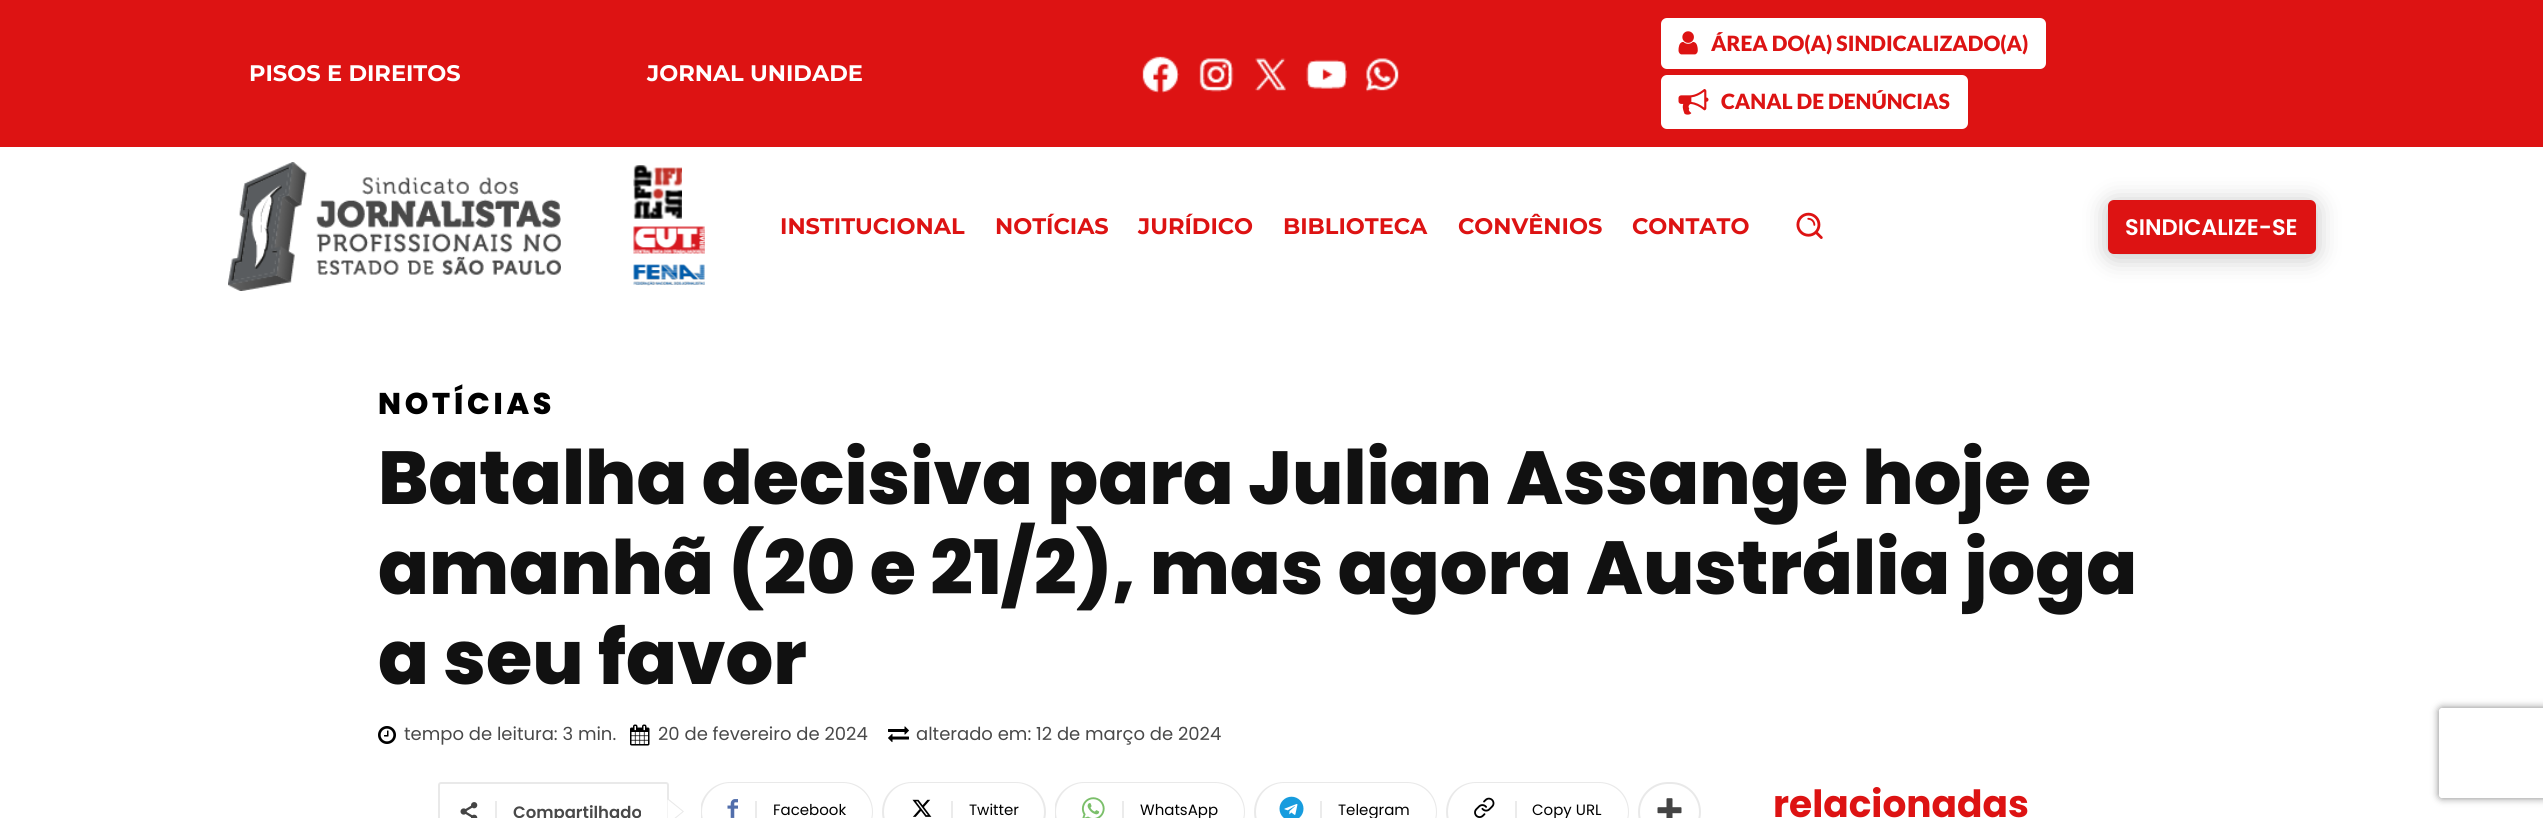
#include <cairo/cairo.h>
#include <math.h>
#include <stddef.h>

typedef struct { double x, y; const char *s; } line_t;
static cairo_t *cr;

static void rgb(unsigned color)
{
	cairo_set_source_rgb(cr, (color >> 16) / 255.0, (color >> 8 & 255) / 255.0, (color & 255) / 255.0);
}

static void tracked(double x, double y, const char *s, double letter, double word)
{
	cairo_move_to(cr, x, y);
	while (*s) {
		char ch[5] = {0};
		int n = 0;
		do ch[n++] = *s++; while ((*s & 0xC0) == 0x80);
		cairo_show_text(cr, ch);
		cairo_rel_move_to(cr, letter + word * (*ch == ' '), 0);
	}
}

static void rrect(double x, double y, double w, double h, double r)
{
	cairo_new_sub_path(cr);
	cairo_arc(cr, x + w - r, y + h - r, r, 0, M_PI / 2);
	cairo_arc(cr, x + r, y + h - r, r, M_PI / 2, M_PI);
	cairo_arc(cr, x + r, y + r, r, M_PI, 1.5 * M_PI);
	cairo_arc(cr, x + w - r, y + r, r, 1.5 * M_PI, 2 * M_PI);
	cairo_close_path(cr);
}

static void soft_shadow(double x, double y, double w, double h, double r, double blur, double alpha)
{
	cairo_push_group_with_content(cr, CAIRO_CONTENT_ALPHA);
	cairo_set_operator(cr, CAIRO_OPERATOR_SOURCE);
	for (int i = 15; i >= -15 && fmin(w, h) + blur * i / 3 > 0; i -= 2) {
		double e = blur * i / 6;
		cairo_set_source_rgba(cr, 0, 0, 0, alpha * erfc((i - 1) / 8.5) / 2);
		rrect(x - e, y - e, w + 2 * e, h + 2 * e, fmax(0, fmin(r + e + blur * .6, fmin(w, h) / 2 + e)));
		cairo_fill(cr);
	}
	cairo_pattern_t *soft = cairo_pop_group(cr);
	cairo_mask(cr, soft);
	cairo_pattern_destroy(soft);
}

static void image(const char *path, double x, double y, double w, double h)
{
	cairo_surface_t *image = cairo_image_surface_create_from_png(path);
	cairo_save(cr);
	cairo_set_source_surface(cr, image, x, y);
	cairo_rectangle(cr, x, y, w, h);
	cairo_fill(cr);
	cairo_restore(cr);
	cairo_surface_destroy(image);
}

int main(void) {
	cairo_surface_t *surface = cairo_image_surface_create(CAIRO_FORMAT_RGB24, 2543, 818);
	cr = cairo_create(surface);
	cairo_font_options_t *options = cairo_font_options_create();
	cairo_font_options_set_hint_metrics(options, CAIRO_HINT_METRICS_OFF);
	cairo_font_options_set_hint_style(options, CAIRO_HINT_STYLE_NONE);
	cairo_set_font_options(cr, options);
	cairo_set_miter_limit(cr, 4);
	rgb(0xffffff);
	cairo_paint(cr);
	rgb(0xdd1313);
	cairo_rectangle(cr, 0, 0, 2543, 147);
	cairo_fill(cr);
	image("img/1.png", 1142, 56, 38, 37);
	image("img/2.png", 1199, 58, 35, 34);
	image("img/3.png", 1255, 58, 31, 33);
	image("img/4.png", 1306, 59, 41, 30);
	image("img/5.png", 1366, 58, 33, 34);
	rgb(0xffffff);
	rrect(1661, 18, 385, 51, 6);
	cairo_fill(cr);
	image("img/6.png", 1678, 31, 20, 24);
	rrect(1661, 75, 307, 54, 6);
	cairo_fill(cr);
	image("img/7.png", 1678, 89, 31, 26);
	image("img/8.png", 228, 162, 333, 129);
	image("img/9.png", 633, 165, 49, 54);
	image("img/10.png", 633, 226, 72, 28);
	image("img/11.png", 633, 264, 72, 22);
	image("img/12.png", 1796, 212, 27, 27);
	rgb(0xc1c1c1);
	soft_shadow(2108, 203, 208, 54, 6, 12, 1);
	rgb(0xdd1313);
	rrect(2108, 200, 208, 54, 6);
	cairo_fill(cr);
	image("img/13.png", 378, 726, 18, 18);
	image("img/14.png", 630, 724, 20, 22);
	image("img/15.png", 888, 726, 21, 17);
	rrect(439, 783, 229, 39, 2);
	rgb(0xe9e9e9);
	cairo_stroke(cr);
	cairo_new_path(cr);
	cairo_move_to(cr, 667.5, 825);
	cairo_line_to(cr, 667.5, 798);
	cairo_line_to(cr, 684, 811.5);
	cairo_close_path(cr);
	cairo_fill(cr);
	image("img/16.png", 460, 802, 18, 16);
	rgb(0xebebeb);
	cairo_rectangle(cr, 495, 801, 2, 17);
	cairo_fill(cr);
	rgb(0xffffff);
	cairo_new_path(cr);
	cairo_move_to(cr, 667.5, 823.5);
	cairo_line_to(cr, 667.5, 799.5);
	cairo_line_to(cr, 682.5, 811.5);
	cairo_close_path(cr);
	cairo_fill(cr);
	rgb(0xe9e9e9);
	cairo_set_fill_rule(cr, CAIRO_FILL_RULE_EVEN_ODD);
	cairo_new_path(cr);
	cairo_move_to(cr, 754, 782);
	cairo_line_to(cr, 843, 782);
	cairo_curve_to(cr, 860, 782, 873, 795, 873, 812);
	cairo_curve_to(cr, 873, 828, 860, 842, 843, 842);
	cairo_line_to(cr, 754, 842);
	cairo_close_path(cr);
	cairo_move_to(cr, 754, 783);
	cairo_line_to(cr, 843, 783);
	cairo_curve_to(cr, 859, 783, 872, 796, 872, 812);
	cairo_curve_to(cr, 872, 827, 859, 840, 843, 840);
	cairo_line_to(cr, 754, 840);
	cairo_close_path(cr);
	cairo_fill(cr);
	cairo_save(cr);
	cairo_set_fill_rule(cr, CAIRO_FILL_RULE_WINDING);
	cairo_rectangle(cr, 701, 782, 172, 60);
	cairo_clip(cr);
	cairo_set_fill_rule(cr, CAIRO_FILL_RULE_EVEN_ODD);
	cairo_new_path(cr);
	cairo_move_to(cr, 730, 782);
	cairo_line_to(cr, 764, 782);
	cairo_line_to(cr, 764, 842);
	cairo_line_to(cr, 730, 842);
	cairo_curve_to(cr, 714, 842, 700, 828, 700, 812);
	cairo_curve_to(cr, 700, 795, 714, 782, 730, 782);
	cairo_close_path(cr);
	cairo_move_to(cr, 730, 783);
	cairo_line_to(cr, 764, 783);
	cairo_line_to(cr, 764, 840);
	cairo_line_to(cr, 730, 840);
	cairo_curve_to(cr, 715, 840, 702, 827, 702, 812);
	cairo_curve_to(cr, 702, 796, 715, 783, 730, 783);
	cairo_close_path(cr);
	cairo_fill(cr);
	cairo_restore(cr);
	image("img/17.png", 727, 799, 11, 19);
	rgb(0xebebeb);
	cairo_rectangle(cr, 755, 801, 2, 17);
	cairo_fill(cr);
	rgb(0xe9e9e9);
	cairo_new_path(cr);
	cairo_move_to(cr, 951, 782);
	cairo_line_to(cr, 1016, 782);
	cairo_curve_to(cr, 1032, 782, 1046, 795, 1046, 812);
	cairo_curve_to(cr, 1046, 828, 1032, 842, 1016, 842);
	cairo_line_to(cr, 951, 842);
	cairo_close_path(cr);
	cairo_move_to(cr, 951, 783);
	cairo_line_to(cr, 1016, 783);
	cairo_curve_to(cr, 1031, 783, 1044, 796, 1044, 812);
	cairo_curve_to(cr, 1044, 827, 1031, 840, 1016, 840);
	cairo_line_to(cr, 951, 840);
	cairo_close_path(cr);
	cairo_fill(cr);
	cairo_new_path(cr);
	cairo_move_to(cr, 912, 782);
	cairo_line_to(cr, 960, 782);
	cairo_line_to(cr, 960, 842);
	cairo_line_to(cr, 912, 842);
	cairo_curve_to(cr, 895, 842, 882, 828, 882, 812);
	cairo_curve_to(cr, 882, 795, 895, 782, 912, 782);
	cairo_close_path(cr);
	cairo_move_to(cr, 912, 783);
	cairo_line_to(cr, 960, 783);
	cairo_line_to(cr, 960, 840);
	cairo_line_to(cr, 912, 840);
	cairo_curve_to(cr, 896, 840, 884, 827, 884, 812);
	cairo_curve_to(cr, 884, 796, 896, 783, 912, 783);
	cairo_close_path(cr);
	cairo_fill(cr);
	image("img/18.png", 912, 799, 20, 18);
	rgb(0xebebeb);
	cairo_rectangle(cr, 951, 801, 2, 17);
	cairo_fill(cr);
	rgb(0xe9e9e9);
	cairo_new_path(cr);
	cairo_move_to(cr, 1122, 782);
	cairo_line_to(cr, 1215, 782);
	cairo_curve_to(cr, 1232, 782, 1245, 795, 1245, 812);
	cairo_curve_to(cr, 1245, 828, 1232, 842, 1215, 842);
	cairo_line_to(cr, 1122, 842);
	cairo_close_path(cr);
	cairo_move_to(cr, 1122, 783);
	cairo_line_to(cr, 1215, 783);
	cairo_curve_to(cr, 1231, 783, 1244, 796, 1244, 812);
	cairo_curve_to(cr, 1244, 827, 1231, 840, 1215, 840);
	cairo_line_to(cr, 1122, 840);
	cairo_close_path(cr);
	cairo_fill(cr);
	cairo_save(cr);
	cairo_set_fill_rule(cr, CAIRO_FILL_RULE_WINDING);
	cairo_rectangle(cr, 1055, 782, 190, 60);
	cairo_clip(cr);
	cairo_set_fill_rule(cr, CAIRO_FILL_RULE_EVEN_ODD);
	cairo_new_path(cr);
	cairo_move_to(cr, 1084, 782);
	cairo_line_to(cr, 1131, 782);
	cairo_line_to(cr, 1131, 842);
	cairo_line_to(cr, 1084, 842);
	cairo_curve_to(cr, 1068, 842, 1054, 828, 1054, 812);
	cairo_curve_to(cr, 1054, 795, 1068, 782, 1084, 782);
	cairo_close_path(cr);
	cairo_move_to(cr, 1084, 783);
	cairo_line_to(cr, 1131, 783);
	cairo_line_to(cr, 1131, 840);
	cairo_line_to(cr, 1084, 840);
	cairo_curve_to(cr, 1069, 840, 1056, 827, 1056, 812);
	cairo_curve_to(cr, 1056, 796, 1069, 783, 1084, 783);
	cairo_close_path(cr);
	cairo_fill(cr);
	cairo_restore(cr);
	image("img/19.png", 1081, 797, 24, 21);
	rgb(0xebebeb);
	cairo_rectangle(cr, 1122, 801, 2, 17);
	cairo_fill(cr);
	rgb(0xe9e9e9);
	cairo_new_path(cr);
	cairo_move_to(cr, 1320, 782);
	cairo_line_to(cr, 1407, 782);
	cairo_curve_to(cr, 1424, 782, 1437, 795, 1437, 812);
	cairo_curve_to(cr, 1437, 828, 1424, 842, 1407, 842);
	cairo_line_to(cr, 1320, 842);
	cairo_close_path(cr);
	cairo_move_to(cr, 1320, 783);
	cairo_line_to(cr, 1407, 783);
	cairo_curve_to(cr, 1423, 783, 1436, 796, 1436, 812);
	cairo_curve_to(cr, 1436, 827, 1423, 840, 1407, 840);
	cairo_line_to(cr, 1320, 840);
	cairo_close_path(cr);
	cairo_fill(cr);
	cairo_new_path(cr);
	cairo_move_to(cr, 1284, 782);
	cairo_line_to(cr, 1329, 782);
	cairo_line_to(cr, 1329, 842);
	cairo_line_to(cr, 1284, 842);
	cairo_curve_to(cr, 1267, 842, 1254, 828, 1254, 812);
	cairo_curve_to(cr, 1254, 795, 1267, 782, 1284, 782);
	cairo_close_path(cr);
	cairo_move_to(cr, 1284, 783);
	cairo_line_to(cr, 1329, 783);
	cairo_line_to(cr, 1329, 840);
	cairo_line_to(cr, 1284, 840);
	cairo_curve_to(cr, 1268, 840, 1256, 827, 1256, 812);
	cairo_curve_to(cr, 1256, 796, 1268, 783, 1284, 783);
	cairo_close_path(cr);
	cairo_fill(cr);
	image("img/20.png", 1279, 796, 25, 22);
	rgb(0xebebeb);
	cairo_rectangle(cr, 1320, 801, 2, 17);
	cairo_fill(cr);
	rgb(0xe9e9e9);
	cairo_new_path(cr);
	cairo_move_to(cr, 1515, 782);
	cairo_line_to(cr, 1599, 782);
	cairo_curve_to(cr, 1616, 782, 1629, 795, 1629, 812);
	cairo_curve_to(cr, 1629, 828, 1616, 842, 1599, 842);
	cairo_line_to(cr, 1515, 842);
	cairo_close_path(cr);
	cairo_move_to(cr, 1515, 783);
	cairo_line_to(cr, 1599, 783);
	cairo_curve_to(cr, 1615, 783, 1628, 796, 1628, 812);
	cairo_curve_to(cr, 1628, 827, 1615, 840, 1599, 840);
	cairo_line_to(cr, 1515, 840);
	cairo_close_path(cr);
	cairo_fill(cr);
	cairo_new_path(cr);
	cairo_move_to(cr, 1476, 782);
	cairo_line_to(cr, 1524, 782);
	cairo_line_to(cr, 1524, 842);
	cairo_line_to(cr, 1476, 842);
	cairo_curve_to(cr, 1459, 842, 1446, 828, 1446, 812);
	cairo_curve_to(cr, 1446, 795, 1459, 782, 1476, 782);
	cairo_close_path(cr);
	cairo_move_to(cr, 1476, 783);
	cairo_line_to(cr, 1524, 783);
	cairo_line_to(cr, 1524, 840);
	cairo_line_to(cr, 1476, 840);
	cairo_curve_to(cr, 1460, 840, 1448, 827, 1448, 812);
	cairo_curve_to(cr, 1448, 796, 1460, 783, 1476, 783);
	cairo_close_path(cr);
	cairo_fill(cr);
	image("img/21.png", 1474, 797, 21, 21);
	rgb(0xebebeb);
	cairo_rectangle(cr, 1515, 801, 2, 17);
	cairo_fill(cr);
	rrect(1639, 783, 61, 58, 29);
	rgb(0xe9e9e9);
	cairo_stroke(cr);
	image("img/22.png", 1657, 798, 25, 20);
	cairo_save(cr);
	cairo_new_path(cr);
	cairo_move_to(cr, 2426, 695);
	cairo_line_to(cr, 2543, 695);
	cairo_line_to(cr, 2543, 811);
	cairo_line_to(cr, 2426, 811);
	cairo_close_path(cr);
	cairo_move_to(cr, 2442, 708);
	cairo_line_to(cr, 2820, 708);
	cairo_curve_to(cr, 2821.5, 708, 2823, 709.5, 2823, 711);
	cairo_line_to(cr, 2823, 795);
	cairo_curve_to(cr, 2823, 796.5, 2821.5, 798, 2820, 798);
	cairo_line_to(cr, 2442, 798);
	cairo_curve_to(cr, 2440.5, 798, 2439, 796.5, 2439, 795);
	cairo_line_to(cr, 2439, 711);
	cairo_curve_to(cr, 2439, 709.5, 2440.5, 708, 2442, 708);
	cairo_close_path(cr);
	cairo_clip(cr);
	rgb(0x808080);
	soft_shadow(2439, 708, 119, 90, 3, 4, 1);
	cairo_restore(cr);
	cairo_select_font_face(cr, "Montserrat", CAIRO_FONT_SLANT_NORMAL, CAIRO_FONT_WEIGHT_BOLD);
	cairo_set_font_size(cr, 22.5);
	rgb(0xffffff);
	cairo_move_to(cr, 249, 81);
	cairo_show_text(cr, "PISOS E DIREITOS");
	cairo_move_to(cr, 647, 81);
	cairo_show_text(cr, "JORNAL UNIDADE");
	cairo_select_font_face(cr, "Lato Black", CAIRO_FONT_SLANT_NORMAL, CAIRO_FONT_WEIGHT_NORMAL);
	cairo_set_font_size(cr, 21);
	rgb(0xdd1313);
	cairo_move_to(cr, 1711, 51);
	cairo_show_text(cr, "ÁREA DO(A) SINDICALIZADO(A)");
	cairo_move_to(cr, 1721, 109);
	cairo_show_text(cr, "CANAL DE DENÚNCIAS");
	cairo_select_font_face(cr, "Montserrat", CAIRO_FONT_SLANT_NORMAL, CAIRO_FONT_WEIGHT_BOLD);
	cairo_set_font_size(cr, 22.5);
	{
		static const line_t items[] = {
			{780, 234, "INSTITUCIONAL"},
			{995, 234, "NOTÍCIAS"},
			{1138, 234, "JURÍDICO"},
			{1283, 234, "BIBLIOTECA"},
			{1458, 234, "CONVÊNIOS"},
			{1632, 234, "CONTATO"},
		};
		for (size_t i = 0; i < sizeof items / sizeof *items; i++) {
			cairo_move_to(cr, items[i].x, items[i].y);
			cairo_show_text(cr, items[i].s);
		}
	}
	cairo_select_font_face(cr, "Poppins SemiBold", CAIRO_FONT_SLANT_NORMAL, CAIRO_FONT_WEIGHT_NORMAL);
	rgb(0xffffff);
	cairo_move_to(cr, 2125, 235);
	cairo_show_text(cr, "SINDICALIZE-SE");
	cairo_select_font_face(cr, "Poppins ExtraBold", CAIRO_FONT_SLANT_NORMAL, CAIRO_FONT_WEIGHT_NORMAL);
	cairo_set_font_size(cr, 30);
	rgb(0x000000);
	tracked(378, 414, "NOTÍCIAS", 3.75, 0);
	cairo_set_font_size(cr, 75);
	rgb(0x111111);
	{
		static const line_t items[] = {
			{378, 504, "Batalha decisiva para Julian Assange hoje e"},
			{378, 594, "amanhã (20 e 21/2), mas agora Austrália joga"},
			{378, 684, "a seu favor"},
		};
		for (size_t i = 0; i < sizeof items / sizeof *items; i++) {
			cairo_move_to(cr, items[i].x, items[i].y);
			cairo_show_text(cr, items[i].s);
		}
	}
	cairo_select_font_face(cr, "Poppins", CAIRO_FONT_SLANT_NORMAL, CAIRO_FONT_WEIGHT_NORMAL);
	cairo_set_font_size(cr, 18);
	rgb(0x494949);
	{
		static const line_t items[] = {
			{404, 740, "tempo de leitura: 3 min."},
			{658, 740, "20 de fevereiro de 2024"},
			{916, 740, "alterado em: 12 de março de 2024"},
		};
		for (size_t i = 0; i < sizeof items / sizeof *items; i++) {
			cairo_move_to(cr, items[i].x, items[i].y);
			cairo_show_text(cr, items[i].s);
		}
	}
	cairo_select_font_face(cr, "Poppins SemiBold", CAIRO_FONT_SLANT_NORMAL, CAIRO_FONT_WEIGHT_NORMAL);
	cairo_set_font_size(cr, 16.5);
	cairo_move_to(cr, 513, 818);
	cairo_show_text(cr, "Compartilhado");
	cairo_select_font_face(cr, "Poppins", CAIRO_FONT_SLANT_NORMAL, CAIRO_FONT_WEIGHT_NORMAL);
	cairo_set_font_size(cr, 15);
	rgb(0x000000);
	{
		static const line_t items[] = {
			{773, 815, "Facebook"},
			{969, 815, "Twitter"},
			{1140, 815, "WhatsApp"},
			{1338, 815, "Telegram"},
			{1532, 815, "Copy URL"},
		};
		for (size_t i = 0; i < sizeof items / sizeof *items; i++) {
			cairo_move_to(cr, items[i].x, items[i].y);
			cairo_show_text(cr, items[i].s);
		}
	}
	cairo_select_font_face(cr, "Poppins", CAIRO_FONT_SLANT_NORMAL, CAIRO_FONT_WEIGHT_BOLD);
	cairo_set_font_size(cr, 37.5);
	rgb(0xdd1313);
	cairo_move_to(cr, 1773, 817);
	cairo_show_text(cr, "relacionadas");
	cairo_surface_write_to_png(surface, "page.png");
	cairo_font_options_destroy(options);
	cairo_destroy(cr);
	cairo_surface_destroy(surface);
	return 0;
}
